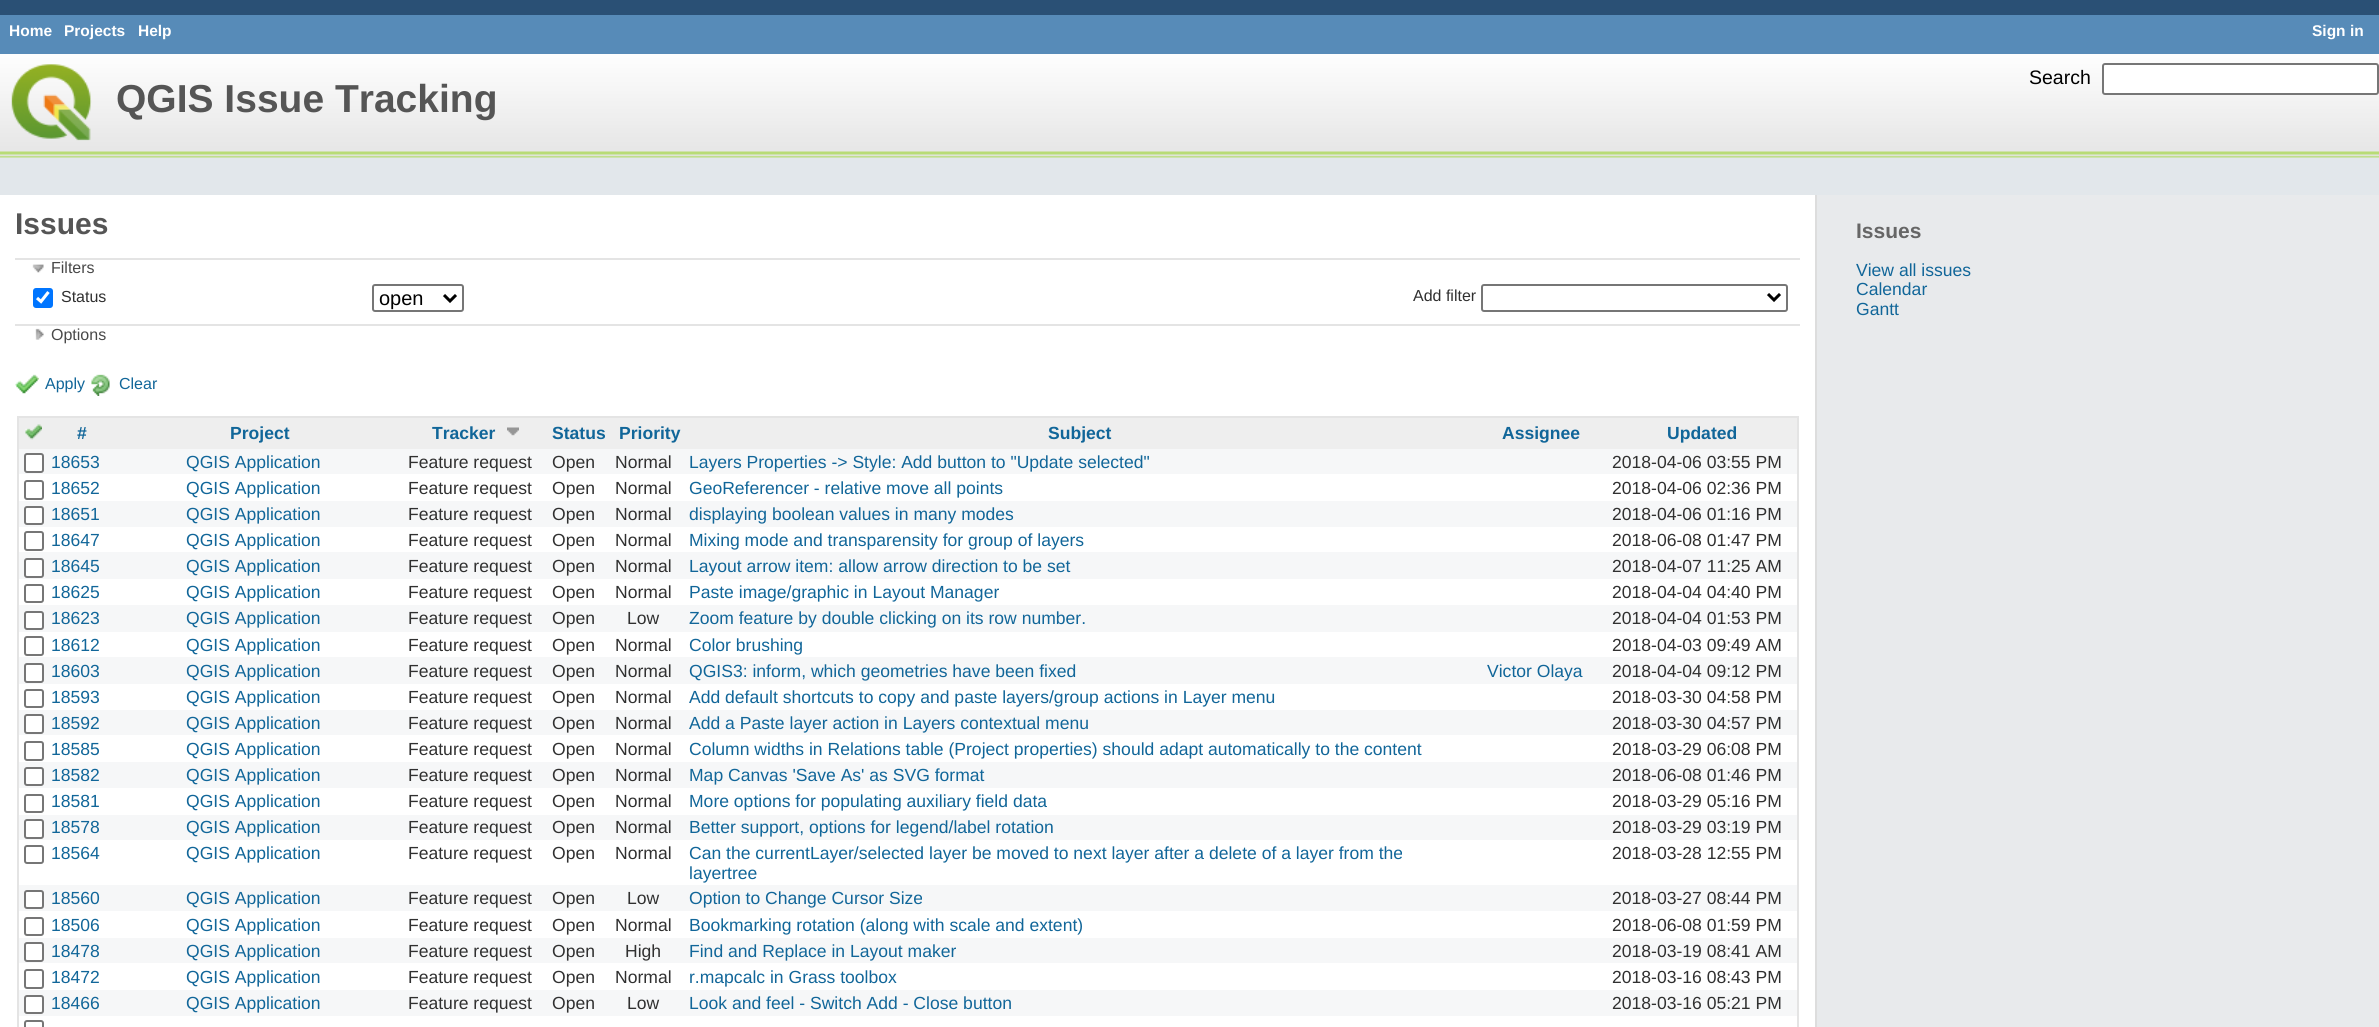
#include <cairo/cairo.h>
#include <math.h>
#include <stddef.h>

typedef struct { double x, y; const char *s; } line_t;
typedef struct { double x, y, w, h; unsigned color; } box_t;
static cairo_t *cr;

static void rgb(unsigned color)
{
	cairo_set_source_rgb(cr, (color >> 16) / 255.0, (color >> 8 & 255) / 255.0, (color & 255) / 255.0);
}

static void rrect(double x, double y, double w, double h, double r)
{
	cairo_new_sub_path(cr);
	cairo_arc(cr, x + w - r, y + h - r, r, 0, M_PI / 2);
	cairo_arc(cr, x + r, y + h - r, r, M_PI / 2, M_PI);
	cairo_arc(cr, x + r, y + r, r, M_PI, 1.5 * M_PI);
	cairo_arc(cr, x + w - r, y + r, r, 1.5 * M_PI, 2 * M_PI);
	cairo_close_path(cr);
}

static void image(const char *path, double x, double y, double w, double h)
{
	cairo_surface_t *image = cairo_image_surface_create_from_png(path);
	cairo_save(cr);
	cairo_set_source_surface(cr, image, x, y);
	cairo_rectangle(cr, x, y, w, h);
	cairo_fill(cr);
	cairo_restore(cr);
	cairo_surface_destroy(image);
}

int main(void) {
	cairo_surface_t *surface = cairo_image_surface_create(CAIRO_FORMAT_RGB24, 2379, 1027);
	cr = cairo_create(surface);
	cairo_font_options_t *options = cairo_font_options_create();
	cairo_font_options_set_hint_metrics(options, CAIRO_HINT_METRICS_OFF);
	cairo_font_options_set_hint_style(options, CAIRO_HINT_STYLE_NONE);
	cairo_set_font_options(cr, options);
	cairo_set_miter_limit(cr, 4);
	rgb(0x2a5075);
	cairo_paint(cr);
	rgb(0x578bb8);
	cairo_rectangle(cr, 0, 15, 2379, 39);
	cairo_fill(cr);
	rgb(0xe2e7eb);
	cairo_rectangle(cr, 0, 157, 2379, 38);
	cairo_fill(cr);
	image("img/1.png", 0, 54, 2379, 104);
	rgb(0xffffff);
	rrect(2103, 64, 275, 30, 2);
	cairo_fill_preserve(cr);
	rgb(0x767676);
	cairo_stroke(cr);
	image("img/2.png", 11, 64, 81, 77);
	{
		static const box_t items[] = {
			{1817, 195, 562, 832, 0xe8eaec},
			{0, 195, 1815, 832, 0xffffff},
			{1815, 195, 2, 832, 0xdddddd},
			{15, 258, 1785, 2, 0xe4e4e4},
		};
		for (size_t i = 0; i < sizeof items / sizeof *items; i++) {
			rgb(items[i].color);
			cairo_rectangle(cr, items[i].x, items[i].y, items[i].w, items[i].h);
			cairo_fill(cr);
		}
	}
	image("img/3.png", 32, 264, 12, 9);
	rgb(0x0075ff);
	rrect(33, 288, 20, 20, 3);
	cairo_fill(cr);
	cairo_new_path(cr);
	cairo_move_to(cr, 37, 298);
	cairo_line_to(cr, 41, 301.5);
	cairo_line_to(cr, 48.5, 292);
	rgb(0xffffff);
	cairo_set_line_width(cr, 3.1);
	cairo_stroke(cr);
	rrect(373, 285, 90, 26, 2);
	rgb(0x767676);
	cairo_set_line_width(cr, 2);
	cairo_stroke(cr);
	cairo_new_path(cr);
	cairo_move_to(cr, 444, 295);
	cairo_line_to(cr, 450, 301);
	cairo_line_to(cr, 456, 295);
	rgb(0x000000);
	cairo_set_line_width(cr, 3);
	cairo_stroke(cr);
	rrect(1482, 285, 305, 26, 2);
	rgb(0x767676);
	cairo_set_line_width(cr, 2);
	cairo_stroke(cr);
	cairo_new_path(cr);
	cairo_move_to(cr, 1768, 294);
	cairo_line_to(cr, 1774, 300);
	cairo_line_to(cr, 1780, 294);
	rgb(0x000000);
	cairo_set_line_width(cr, 3);
	cairo_stroke(cr);
	rgb(0xe4e4e4);
	cairo_rectangle(cr, 15, 324, 1785, 2);
	cairo_fill(cr);
	image("img/4.png", 35, 328, 9, 12);
	image("img/5.png", 15, 374, 24, 20);
	image("img/6.png", 91, 374, 19, 22);
	{
		static const box_t items[] = {
			{17, 416, 1782, 2, 0xe4e4e4},
			{1797, 416, 2, 611, 0xe4e4e4},
			{17, 416, 2, 611, 0xe4e4e4},
			{19, 418, 1778, 31, 0xeeeeee},
		};
		for (size_t i = 0; i < sizeof items / sizeof *items; i++) {
			rgb(items[i].color);
			cairo_rectangle(cr, items[i].x, items[i].y, items[i].w, items[i].h);
			cairo_fill(cr);
		}
	}
	image("img/7.png", 25, 424, 17, 16);
	image("img/8.png", 507, 427, 12, 9);
	rgb(0xf6f7f8);
	cairo_rectangle(cr, 19, 449, 1778, 25);
	cairo_fill(cr);
	rgb(0xffffff);
	rrect(25, 454, 18, 18, 2);
	cairo_fill_preserve(cr);
	rgb(0x767676);
	cairo_set_line_width(cr, 2);
	cairo_stroke(cr);
	rrect(25, 481, 18, 18, 2);
	cairo_stroke(cr);
	rgb(0xf6f7f8);
	cairo_rectangle(cr, 19, 501, 1778, 26);
	cairo_fill(cr);
	rgb(0xffffff);
	rrect(25, 507, 18, 17, 2);
	cairo_fill_preserve(cr);
	rgb(0x767676);
	cairo_stroke(cr);
	rrect(25, 532, 18, 18, 2);
	cairo_stroke(cr);
	rgb(0xf6f7f8);
	cairo_rectangle(cr, 19, 552, 1778, 27);
	cairo_fill(cr);
	rgb(0xffffff);
	rrect(25, 559, 18, 18, 2);
	cairo_fill_preserve(cr);
	rgb(0x767676);
	cairo_stroke(cr);
	rrect(25, 585, 18, 17, 2);
	cairo_stroke(cr);
	rgb(0xf6f7f8);
	cairo_rectangle(cr, 19, 605, 1778, 27);
	cairo_fill(cr);
	rgb(0xffffff);
	rrect(25, 612, 18, 17, 2);
	cairo_fill_preserve(cr);
	rgb(0x767676);
	cairo_stroke(cr);
	rrect(25, 637, 18, 18, 2);
	cairo_stroke(cr);
	rgb(0xf6f7f8);
	cairo_rectangle(cr, 19, 657, 1778, 27);
	cairo_fill(cr);
	rgb(0xffffff);
	rrect(25, 664, 18, 18, 2);
	cairo_fill_preserve(cr);
	rgb(0x767676);
	cairo_stroke(cr);
	rrect(25, 690, 18, 17, 2);
	cairo_stroke(cr);
	rgb(0xf6f7f8);
	cairo_rectangle(cr, 19, 710, 1778, 25);
	cairo_fill(cr);
	rgb(0xffffff);
	rrect(25, 715, 18, 18, 2);
	cairo_fill_preserve(cr);
	rgb(0x767676);
	cairo_stroke(cr);
	rrect(25, 742, 18, 18, 2);
	cairo_stroke(cr);
	rgb(0xf6f7f8);
	cairo_rectangle(cr, 19, 762, 1778, 26);
	cairo_fill(cr);
	rgb(0xffffff);
	rrect(25, 768, 18, 17, 2);
	cairo_fill_preserve(cr);
	rgb(0x767676);
	cairo_stroke(cr);
	rrect(25, 795, 18, 17, 2);
	cairo_stroke(cr);
	rgb(0xf6f7f8);
	cairo_rectangle(cr, 19, 815, 1778, 25);
	cairo_fill(cr);
	rgb(0xffffff);
	rrect(25, 820, 18, 18, 2);
	cairo_fill_preserve(cr);
	rgb(0x767676);
	cairo_stroke(cr);
	rrect(25, 846, 18, 17, 2);
	cairo_stroke(cr);
	rgb(0xf6f7f8);
	cairo_rectangle(cr, 19, 885, 1778, 26);
	cairo_fill(cr);
	rgb(0xffffff);
	rrect(25, 891, 18, 17, 2);
	cairo_fill_preserve(cr);
	rgb(0x767676);
	cairo_stroke(cr);
	rrect(25, 918, 18, 17, 2);
	cairo_stroke(cr);
	rgb(0xf6f7f8);
	cairo_rectangle(cr, 19, 938, 1778, 25);
	cairo_fill(cr);
	rgb(0xffffff);
	rrect(25, 943, 18, 18, 2);
	cairo_fill_preserve(cr);
	rgb(0x767676);
	cairo_stroke(cr);
	rrect(25, 970, 18, 18, 2);
	cairo_stroke(cr);
	rgb(0xf6f7f8);
	cairo_rectangle(cr, 19, 990, 1778, 26);
	cairo_fill(cr);
	rgb(0xffffff);
	rrect(25, 996, 18, 17, 2);
	cairo_fill_preserve(cr);
	rgb(0x767676);
	cairo_stroke(cr);
	rrect(25, 1021, 18, 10, 2);
	cairo_stroke(cr);
	cairo_select_font_face(cr, "Liberation Sans", CAIRO_FONT_SLANT_NORMAL, CAIRO_FONT_WEIGHT_BOLD);
	cairo_set_font_size(cr, 15.5);
	rgb(0xffffff);
	{
		static const line_t items[] = {
			{9, 36, "Home"},
			{64, 36, "Projects"},
			{138, 36, "Help"},
			{2312, 36, "Sign in"},
		};
		for (size_t i = 0; i < sizeof items / sizeof *items; i++) {
			cairo_move_to(cr, items[i].x, items[i].y);
			cairo_show_text(cr, items[i].s);
		}
	}
	cairo_select_font_face(cr, "Liberation Sans", CAIRO_FONT_SLANT_NORMAL, CAIRO_FONT_WEIGHT_NORMAL);
	cairo_set_font_size(cr, 19.5);
	rgb(0x000000);
	cairo_move_to(cr, 2029, 84);
	cairo_show_text(cr, "Search");
	cairo_select_font_face(cr, "Liberation Sans", CAIRO_FONT_SLANT_NORMAL, CAIRO_FONT_WEIGHT_BOLD);
	cairo_set_font_size(cr, 39);
	rgb(0x555555);
	cairo_move_to(cr, 116, 112);
	cairo_show_text(cr, "QGIS Issue Tracking");
	cairo_set_font_size(cr, 30);
	cairo_move_to(cr, 15, 234);
	cairo_show_text(cr, "Issues");
	cairo_select_font_face(cr, "Liberation Sans", CAIRO_FONT_SLANT_NORMAL, CAIRO_FONT_WEIGHT_NORMAL);
	cairo_set_font_size(cr, 16);
	rgb(0x484848);
	cairo_move_to(cr, 51, 273);
	cairo_show_text(cr, "Filters");
	rgb(0x303030);
	cairo_move_to(cr, 61, 302);
	cairo_show_text(cr, "Status");
	cairo_set_font_size(cr, 20);
	rgb(0x000000);
	cairo_move_to(cr, 379, 305);
	cairo_show_text(cr, "open");
	cairo_set_font_size(cr, 16);
	rgb(0x303030);
	cairo_move_to(cr, 1413, 301);
	cairo_show_text(cr, "Add filter");
	rgb(0x484848);
	cairo_move_to(cr, 51, 340);
	cairo_show_text(cr, "Options");
	rgb(0x116699);
	cairo_move_to(cr, 45, 389);
	cairo_show_text(cr, "Apply");
	cairo_move_to(cr, 119, 389);
	cairo_show_text(cr, "Clear");
	cairo_select_font_face(cr, "Liberation Sans", CAIRO_FONT_SLANT_NORMAL, CAIRO_FONT_WEIGHT_BOLD);
	cairo_set_font_size(cr, 17.55);
	{
		static const line_t items[] = {
			{77, 439, "#"},
			{230, 439, "Project"},
			{432, 439, "Tracker"},
			{552, 439, "Status"},
			{619, 439, "Priority"},
			{1048, 439, "Subject"},
			{1502, 439, "Assignee"},
			{1667, 439, "Updated"},
		};
		for (size_t i = 0; i < sizeof items / sizeof *items; i++) {
			cairo_move_to(cr, items[i].x, items[i].y);
			cairo_show_text(cr, items[i].s);
		}
	}
	cairo_select_font_face(cr, "Liberation Sans", CAIRO_FONT_SLANT_NORMAL, CAIRO_FONT_WEIGHT_NORMAL);
	cairo_move_to(cr, 51, 468);
	cairo_show_text(cr, "18653");
	cairo_move_to(cr, 186, 468);
	cairo_show_text(cr, "QGIS Application");
	rgb(0x303030);
	{
		static const line_t items[] = {
			{408, 468, "Feature request"},
			{552, 468, "Open"},
			{615, 468, "Normal"},
		};
		for (size_t i = 0; i < sizeof items / sizeof *items; i++) {
			cairo_move_to(cr, items[i].x, items[i].y);
			cairo_show_text(cr, items[i].s);
		}
	}
	rgb(0x116699);
	cairo_move_to(cr, 689, 468);
	cairo_show_text(cr, "Layers Properties -> Style: Add button to \"Update selected\"");
	rgb(0x303030);
	cairo_move_to(cr, 1612, 468);
	cairo_show_text(cr, "2018-04-06 03:55 PM");
	rgb(0x116699);
	cairo_move_to(cr, 51, 494);
	cairo_show_text(cr, "18652");
	cairo_move_to(cr, 186, 494);
	cairo_show_text(cr, "QGIS Application");
	rgb(0x303030);
	{
		static const line_t items[] = {
			{408, 494, "Feature request"},
			{552, 494, "Open"},
			{615, 494, "Normal"},
		};
		for (size_t i = 0; i < sizeof items / sizeof *items; i++) {
			cairo_move_to(cr, items[i].x, items[i].y);
			cairo_show_text(cr, items[i].s);
		}
	}
	rgb(0x116699);
	cairo_move_to(cr, 689, 494);
	cairo_show_text(cr, "GeoReferencer - relative move all points");
	rgb(0x303030);
	cairo_move_to(cr, 1612, 494);
	cairo_show_text(cr, "2018-04-06 02:36 PM");
	rgb(0x116699);
	cairo_move_to(cr, 51, 520);
	cairo_show_text(cr, "18651");
	cairo_move_to(cr, 186, 520);
	cairo_show_text(cr, "QGIS Application");
	rgb(0x303030);
	{
		static const line_t items[] = {
			{408, 520, "Feature request"},
			{552, 520, "Open"},
			{615, 520, "Normal"},
		};
		for (size_t i = 0; i < sizeof items / sizeof *items; i++) {
			cairo_move_to(cr, items[i].x, items[i].y);
			cairo_show_text(cr, items[i].s);
		}
	}
	rgb(0x116699);
	cairo_move_to(cr, 689, 520);
	cairo_show_text(cr, "displaying boolean values in many modes");
	rgb(0x303030);
	cairo_move_to(cr, 1612, 520);
	cairo_show_text(cr, "2018-04-06 01:16 PM");
	rgb(0x116699);
	cairo_move_to(cr, 51, 546);
	cairo_show_text(cr, "18647");
	cairo_move_to(cr, 186, 546);
	cairo_show_text(cr, "QGIS Application");
	rgb(0x303030);
	{
		static const line_t items[] = {
			{408, 546, "Feature request"},
			{552, 546, "Open"},
			{615, 546, "Normal"},
		};
		for (size_t i = 0; i < sizeof items / sizeof *items; i++) {
			cairo_move_to(cr, items[i].x, items[i].y);
			cairo_show_text(cr, items[i].s);
		}
	}
	rgb(0x116699);
	cairo_move_to(cr, 689, 546);
	cairo_show_text(cr, "Mixing mode and transparensity for group of layers");
	rgb(0x303030);
	cairo_move_to(cr, 1612, 546);
	cairo_show_text(cr, "2018-06-08 01:47 PM");
	rgb(0x116699);
	cairo_move_to(cr, 51, 572);
	cairo_show_text(cr, "18645");
	cairo_move_to(cr, 186, 572);
	cairo_show_text(cr, "QGIS Application");
	rgb(0x303030);
	{
		static const line_t items[] = {
			{408, 572, "Feature request"},
			{552, 572, "Open"},
			{615, 572, "Normal"},
		};
		for (size_t i = 0; i < sizeof items / sizeof *items; i++) {
			cairo_move_to(cr, items[i].x, items[i].y);
			cairo_show_text(cr, items[i].s);
		}
	}
	rgb(0x116699);
	cairo_move_to(cr, 689, 572);
	cairo_show_text(cr, "Layout arrow item: allow arrow direction to be set");
	rgb(0x303030);
	cairo_move_to(cr, 1612, 572);
	cairo_show_text(cr, "2018-04-07 11:25 AM");
	rgb(0x116699);
	cairo_move_to(cr, 51, 598);
	cairo_show_text(cr, "18625");
	cairo_move_to(cr, 186, 598);
	cairo_show_text(cr, "QGIS Application");
	rgb(0x303030);
	{
		static const line_t items[] = {
			{408, 598, "Feature request"},
			{552, 598, "Open"},
			{615, 598, "Normal"},
		};
		for (size_t i = 0; i < sizeof items / sizeof *items; i++) {
			cairo_move_to(cr, items[i].x, items[i].y);
			cairo_show_text(cr, items[i].s);
		}
	}
	rgb(0x116699);
	cairo_move_to(cr, 689, 598);
	cairo_show_text(cr, "Paste image/graphic in Layout Manager");
	rgb(0x303030);
	cairo_move_to(cr, 1612, 598);
	cairo_show_text(cr, "2018-04-04 04:40 PM");
	rgb(0x116699);
	cairo_move_to(cr, 51, 624);
	cairo_show_text(cr, "18623");
	cairo_move_to(cr, 186, 624);
	cairo_show_text(cr, "QGIS Application");
	rgb(0x303030);
	{
		static const line_t items[] = {
			{408, 624, "Feature request"},
			{552, 624, "Open"},
			{627, 624, "Low"},
		};
		for (size_t i = 0; i < sizeof items / sizeof *items; i++) {
			cairo_move_to(cr, items[i].x, items[i].y);
			cairo_show_text(cr, items[i].s);
		}
	}
	rgb(0x116699);
	cairo_move_to(cr, 689, 624);
	cairo_show_text(cr, "Zoom feature by double clicking on its row number.");
	rgb(0x303030);
	cairo_move_to(cr, 1612, 624);
	cairo_show_text(cr, "2018-04-04 01:53 PM");
	rgb(0x116699);
	cairo_move_to(cr, 51, 651);
	cairo_show_text(cr, "18612");
	cairo_move_to(cr, 186, 651);
	cairo_show_text(cr, "QGIS Application");
	rgb(0x303030);
	{
		static const line_t items[] = {
			{408, 651, "Feature request"},
			{552, 651, "Open"},
			{615, 651, "Normal"},
		};
		for (size_t i = 0; i < sizeof items / sizeof *items; i++) {
			cairo_move_to(cr, items[i].x, items[i].y);
			cairo_show_text(cr, items[i].s);
		}
	}
	rgb(0x116699);
	cairo_move_to(cr, 689, 651);
	cairo_show_text(cr, "Color brushing");
	rgb(0x303030);
	cairo_move_to(cr, 1612, 651);
	cairo_show_text(cr, "2018-04-03 09:49 AM");
	rgb(0x116699);
	cairo_move_to(cr, 51, 677);
	cairo_show_text(cr, "18603");
	cairo_move_to(cr, 186, 677);
	cairo_show_text(cr, "QGIS Application");
	rgb(0x303030);
	{
		static const line_t items[] = {
			{408, 677, "Feature request"},
			{552, 677, "Open"},
			{615, 677, "Normal"},
		};
		for (size_t i = 0; i < sizeof items / sizeof *items; i++) {
			cairo_move_to(cr, items[i].x, items[i].y);
			cairo_show_text(cr, items[i].s);
		}
	}
	rgb(0x116699);
	cairo_move_to(cr, 689, 677);
	cairo_show_text(cr, "QGIS3: inform, which geometries have been fixed");
	cairo_move_to(cr, 1487, 677);
	cairo_show_text(cr, "Victor Olaya");
	rgb(0x303030);
	cairo_move_to(cr, 1612, 677);
	cairo_show_text(cr, "2018-04-04 09:12 PM");
	rgb(0x116699);
	cairo_move_to(cr, 51, 703);
	cairo_show_text(cr, "18593");
	cairo_move_to(cr, 186, 703);
	cairo_show_text(cr, "QGIS Application");
	rgb(0x303030);
	{
		static const line_t items[] = {
			{408, 703, "Feature request"},
			{552, 703, "Open"},
			{615, 703, "Normal"},
		};
		for (size_t i = 0; i < sizeof items / sizeof *items; i++) {
			cairo_move_to(cr, items[i].x, items[i].y);
			cairo_show_text(cr, items[i].s);
		}
	}
	rgb(0x116699);
	cairo_move_to(cr, 689, 703);
	cairo_show_text(cr, "Add default shortcuts to copy and paste layers/group actions in Layer menu");
	rgb(0x303030);
	cairo_move_to(cr, 1612, 703);
	cairo_show_text(cr, "2018-03-30 04:58 PM");
	rgb(0x116699);
	cairo_move_to(cr, 51, 729);
	cairo_show_text(cr, "18592");
	cairo_move_to(cr, 186, 729);
	cairo_show_text(cr, "QGIS Application");
	rgb(0x303030);
	{
		static const line_t items[] = {
			{408, 729, "Feature request"},
			{552, 729, "Open"},
			{615, 729, "Normal"},
		};
		for (size_t i = 0; i < sizeof items / sizeof *items; i++) {
			cairo_move_to(cr, items[i].x, items[i].y);
			cairo_show_text(cr, items[i].s);
		}
	}
	rgb(0x116699);
	cairo_move_to(cr, 689, 729);
	cairo_show_text(cr, "Add a Paste layer action in Layers contextual menu");
	rgb(0x303030);
	cairo_move_to(cr, 1612, 729);
	cairo_show_text(cr, "2018-03-30 04:57 PM");
	rgb(0x116699);
	cairo_move_to(cr, 51, 755);
	cairo_show_text(cr, "18585");
	cairo_move_to(cr, 186, 755);
	cairo_show_text(cr, "QGIS Application");
	rgb(0x303030);
	{
		static const line_t items[] = {
			{408, 755, "Feature request"},
			{552, 755, "Open"},
			{615, 755, "Normal"},
		};
		for (size_t i = 0; i < sizeof items / sizeof *items; i++) {
			cairo_move_to(cr, items[i].x, items[i].y);
			cairo_show_text(cr, items[i].s);
		}
	}
	rgb(0x116699);
	cairo_move_to(cr, 689, 755);
	cairo_show_text(cr, "Column widths in Relations table (Project properties) should adapt automatically to the content");
	rgb(0x303030);
	cairo_move_to(cr, 1612, 755);
	cairo_show_text(cr, "2018-03-29 06:08 PM");
	rgb(0x116699);
	cairo_move_to(cr, 51, 781);
	cairo_show_text(cr, "18582");
	cairo_move_to(cr, 186, 781);
	cairo_show_text(cr, "QGIS Application");
	rgb(0x303030);
	{
		static const line_t items[] = {
			{408, 781, "Feature request"},
			{552, 781, "Open"},
			{615, 781, "Normal"},
		};
		for (size_t i = 0; i < sizeof items / sizeof *items; i++) {
			cairo_move_to(cr, items[i].x, items[i].y);
			cairo_show_text(cr, items[i].s);
		}
	}
	rgb(0x116699);
	cairo_move_to(cr, 689, 781);
	cairo_show_text(cr, "Map Canvas 'Save As' as SVG format");
	rgb(0x303030);
	cairo_move_to(cr, 1612, 781);
	cairo_show_text(cr, "2018-06-08 01:46 PM");
	rgb(0x116699);
	cairo_move_to(cr, 51, 807);
	cairo_show_text(cr, "18581");
	cairo_move_to(cr, 186, 807);
	cairo_show_text(cr, "QGIS Application");
	rgb(0x303030);
	{
		static const line_t items[] = {
			{408, 807, "Feature request"},
			{552, 807, "Open"},
			{615, 807, "Normal"},
		};
		for (size_t i = 0; i < sizeof items / sizeof *items; i++) {
			cairo_move_to(cr, items[i].x, items[i].y);
			cairo_show_text(cr, items[i].s);
		}
	}
	rgb(0x116699);
	cairo_move_to(cr, 689, 807);
	cairo_show_text(cr, "More options for populating auxiliary field data");
	rgb(0x303030);
	cairo_move_to(cr, 1612, 807);
	cairo_show_text(cr, "2018-03-29 05:16 PM");
	rgb(0x116699);
	cairo_move_to(cr, 51, 833);
	cairo_show_text(cr, "18578");
	cairo_move_to(cr, 186, 833);
	cairo_show_text(cr, "QGIS Application");
	rgb(0x303030);
	{
		static const line_t items[] = {
			{408, 833, "Feature request"},
			{552, 833, "Open"},
			{615, 833, "Normal"},
		};
		for (size_t i = 0; i < sizeof items / sizeof *items; i++) {
			cairo_move_to(cr, items[i].x, items[i].y);
			cairo_show_text(cr, items[i].s);
		}
	}
	rgb(0x116699);
	cairo_move_to(cr, 689, 833);
	cairo_show_text(cr, "Better support, options for legend/label rotation");
	rgb(0x303030);
	cairo_move_to(cr, 1612, 833);
	cairo_show_text(cr, "2018-03-29 03:19 PM");
	rgb(0x116699);
	cairo_move_to(cr, 51, 859);
	cairo_show_text(cr, "18564");
	cairo_move_to(cr, 186, 859);
	cairo_show_text(cr, "QGIS Application");
	rgb(0x303030);
	{
		static const line_t items[] = {
			{408, 859, "Feature request"},
			{552, 859, "Open"},
			{615, 859, "Normal"},
		};
		for (size_t i = 0; i < sizeof items / sizeof *items; i++) {
			cairo_move_to(cr, items[i].x, items[i].y);
			cairo_show_text(cr, items[i].s);
		}
	}
	rgb(0x116699);
	cairo_move_to(cr, 689, 859);
	cairo_show_text(cr, "Can the currentLayer/selected layer be moved to next layer after a delete of a layer from the");
	cairo_move_to(cr, 689, 879);
	cairo_show_text(cr, "layertree");
	rgb(0x303030);
	cairo_move_to(cr, 1612, 859);
	cairo_show_text(cr, "2018-03-28 12:55 PM");
	rgb(0x116699);
	cairo_move_to(cr, 51, 904);
	cairo_show_text(cr, "18560");
	cairo_move_to(cr, 186, 904);
	cairo_show_text(cr, "QGIS Application");
	rgb(0x303030);
	{
		static const line_t items[] = {
			{408, 904, "Feature request"},
			{552, 904, "Open"},
			{627, 904, "Low"},
		};
		for (size_t i = 0; i < sizeof items / sizeof *items; i++) {
			cairo_move_to(cr, items[i].x, items[i].y);
			cairo_show_text(cr, items[i].s);
		}
	}
	rgb(0x116699);
	cairo_move_to(cr, 689, 904);
	cairo_show_text(cr, "Option to Change Cursor Size");
	rgb(0x303030);
	cairo_move_to(cr, 1612, 904);
	cairo_show_text(cr, "2018-03-27 08:44 PM");
	rgb(0x116699);
	cairo_move_to(cr, 51, 931);
	cairo_show_text(cr, "18506");
	cairo_move_to(cr, 186, 931);
	cairo_show_text(cr, "QGIS Application");
	rgb(0x303030);
	{
		static const line_t items[] = {
			{408, 931, "Feature request"},
			{552, 931, "Open"},
			{615, 931, "Normal"},
		};
		for (size_t i = 0; i < sizeof items / sizeof *items; i++) {
			cairo_move_to(cr, items[i].x, items[i].y);
			cairo_show_text(cr, items[i].s);
		}
	}
	rgb(0x116699);
	cairo_move_to(cr, 689, 931);
	cairo_show_text(cr, "Bookmarking rotation (along with scale and extent)");
	rgb(0x303030);
	cairo_move_to(cr, 1612, 931);
	cairo_show_text(cr, "2018-06-08 01:59 PM");
	rgb(0x116699);
	cairo_move_to(cr, 51, 957);
	cairo_show_text(cr, "18478");
	cairo_move_to(cr, 186, 957);
	cairo_show_text(cr, "QGIS Application");
	rgb(0x303030);
	{
		static const line_t items[] = {
			{408, 957, "Feature request"},
			{552, 957, "Open"},
			{625, 957, "High"},
		};
		for (size_t i = 0; i < sizeof items / sizeof *items; i++) {
			cairo_move_to(cr, items[i].x, items[i].y);
			cairo_show_text(cr, items[i].s);
		}
	}
	rgb(0x116699);
	cairo_move_to(cr, 689, 957);
	cairo_show_text(cr, "Find and Replace in Layout maker");
	rgb(0x303030);
	cairo_move_to(cr, 1612, 957);
	cairo_show_text(cr, "2018-03-19 08:41 AM");
	rgb(0x116699);
	cairo_move_to(cr, 51, 983);
	cairo_show_text(cr, "18472");
	cairo_move_to(cr, 186, 983);
	cairo_show_text(cr, "QGIS Application");
	rgb(0x303030);
	{
		static const line_t items[] = {
			{408, 983, "Feature request"},
			{552, 983, "Open"},
			{615, 983, "Normal"},
		};
		for (size_t i = 0; i < sizeof items / sizeof *items; i++) {
			cairo_move_to(cr, items[i].x, items[i].y);
			cairo_show_text(cr, items[i].s);
		}
	}
	rgb(0x116699);
	cairo_move_to(cr, 689, 983);
	cairo_show_text(cr, "r.mapcalc in Grass toolbox");
	rgb(0x303030);
	cairo_move_to(cr, 1612, 983);
	cairo_show_text(cr, "2018-03-16 08:43 PM");
	rgb(0x116699);
	cairo_move_to(cr, 51, 1009);
	cairo_show_text(cr, "18466");
	cairo_move_to(cr, 186, 1009);
	cairo_show_text(cr, "QGIS Application");
	rgb(0x303030);
	{
		static const line_t items[] = {
			{408, 1009, "Feature request"},
			{552, 1009, "Open"},
			{627, 1009, "Low"},
		};
		for (size_t i = 0; i < sizeof items / sizeof *items; i++) {
			cairo_move_to(cr, items[i].x, items[i].y);
			cairo_show_text(cr, items[i].s);
		}
	}
	rgb(0x116699);
	cairo_move_to(cr, 689, 1009);
	cairo_show_text(cr, "Look and feel - Switch Add - Close button");
	rgb(0x303030);
	cairo_move_to(cr, 1612, 1009);
	cairo_show_text(cr, "2018-03-16 05:21 PM");
	cairo_select_font_face(cr, "Liberation Sans", CAIRO_FONT_SLANT_NORMAL, CAIRO_FONT_WEIGHT_BOLD);
	cairo_set_font_size(cr, 21);
	rgb(0x666666);
	cairo_move_to(cr, 1856, 238);
	cairo_show_text(cr, "Issues");
	cairo_select_font_face(cr, "Liberation Sans", CAIRO_FONT_SLANT_NORMAL, CAIRO_FONT_WEIGHT_NORMAL);
	cairo_set_font_size(cr, 17.55);
	rgb(0x116699);
	{
		static const line_t items[] = {
			{1856, 276, "View all issues"},
			{1856, 295, "Calendar"},
			{1856, 315, "Gantt"},
		};
		for (size_t i = 0; i < sizeof items / sizeof *items; i++) {
			cairo_move_to(cr, items[i].x, items[i].y);
			cairo_show_text(cr, items[i].s);
		}
	}
	cairo_surface_write_to_png(surface, "page.png");
	cairo_font_options_destroy(options);
	cairo_destroy(cr);
	cairo_surface_destroy(surface);
	return 0;
}
